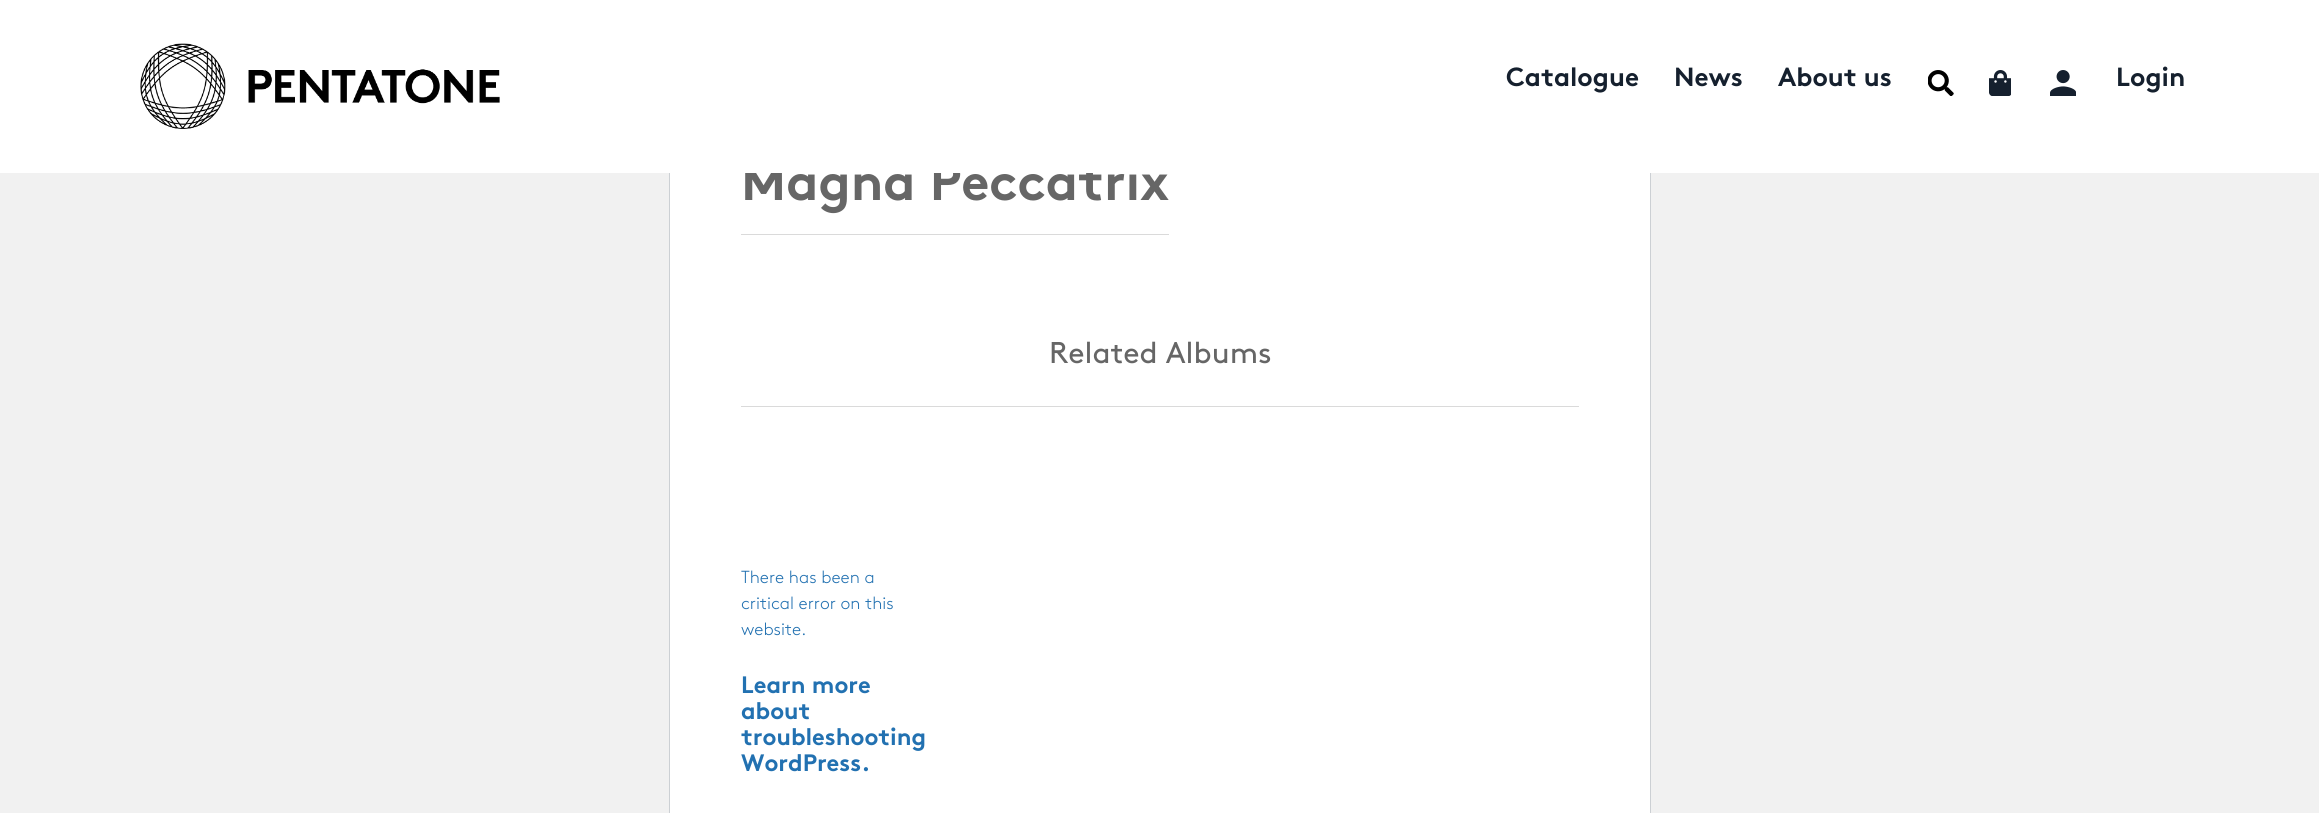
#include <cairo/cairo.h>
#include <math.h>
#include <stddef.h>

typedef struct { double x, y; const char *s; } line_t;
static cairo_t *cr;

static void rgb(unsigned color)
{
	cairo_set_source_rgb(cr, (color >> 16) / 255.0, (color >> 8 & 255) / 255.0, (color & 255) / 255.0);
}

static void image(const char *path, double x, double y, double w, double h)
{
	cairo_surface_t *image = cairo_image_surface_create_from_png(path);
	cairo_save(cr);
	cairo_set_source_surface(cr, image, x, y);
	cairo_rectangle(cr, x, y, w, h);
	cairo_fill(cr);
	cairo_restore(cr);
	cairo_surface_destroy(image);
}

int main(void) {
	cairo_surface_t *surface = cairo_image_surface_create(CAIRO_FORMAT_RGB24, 2319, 813);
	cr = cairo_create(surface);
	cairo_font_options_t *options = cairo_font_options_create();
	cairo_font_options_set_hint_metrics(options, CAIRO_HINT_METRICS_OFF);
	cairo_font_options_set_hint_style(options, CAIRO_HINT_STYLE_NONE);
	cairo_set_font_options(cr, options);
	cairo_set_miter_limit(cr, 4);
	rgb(0xf1f1f1);
	cairo_paint(cr);
	rgb(0xffffff);
	cairo_rectangle(cr, 670, 173, 980, 640);
	cairo_fill(cr);
	cairo_rectangle(cr, 669.5, 63.5, 981, 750);
	rgb(0xccd0d4);
	cairo_set_line_width(cr, 1);
	cairo_stroke(cr);
	rgb(0xdadada);
	cairo_rectangle(cr, 741, 234, 428, 1);
	cairo_fill(cr);
	cairo_rectangle(cr, 741, 406, 838, 1);
	cairo_fill(cr);
	cairo_select_font_face(cr, "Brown", CAIRO_FONT_SLANT_NORMAL, CAIRO_FONT_WEIGHT_BOLD);
	cairo_set_font_size(cr, 52.5);
	rgb(0x666666);
	cairo_move_to(cr, 741, 200);
	cairo_show_text(cr, "Magna Peccatrix");
	rgb(0xffffff);
	cairo_rectangle(cr, 0, 0, 2319, 173);
	cairo_fill(cr);
	image("img/3.png", 1989, 70, 22, 26);
	image("img/4.png", 2050, 70, 26, 26);
	image("img/2.png", 1928, 70, 26, 26);
	cairo_set_font_size(cr, 26.25);
	rgb(0x15202e);
	{
		static const line_t items[] = {
			{2116, 86, "Login"},
			{1778, 86, "About us"},
			{1674, 86, "News"},
			{1506, 86, "Catalogue"},
		};
		for (size_t i = 0; i < sizeof items / sizeof *items; i++) {
			cairo_move_to(cr, items[i].x, items[i].y);
			cairo_show_text(cr, items[i].s);
		}
	}
	image("img/1.png", 140, 43, 360, 86);
	cairo_select_font_face(cr, "Brown", CAIRO_FONT_SLANT_NORMAL, CAIRO_FONT_WEIGHT_NORMAL);
	cairo_set_font_size(cr, 30);
	rgb(0x666666);
	cairo_move_to(cr, 1049, 363);
	cairo_show_text(cr, "Related Albums");
	cairo_select_font_face(cr, "Brown Light", CAIRO_FONT_SLANT_NORMAL, CAIRO_FONT_WEIGHT_NORMAL);
	cairo_set_font_size(cr, 17.5);
	rgb(0x2271b1);
	{
		static const line_t items[] = {
			{741, 583, "There has been a"},
			{741, 609, "critical error on this"},
			{741, 635, "website."},
		};
		for (size_t i = 0; i < sizeof items / sizeof *items; i++) {
			cairo_move_to(cr, items[i].x, items[i].y);
			cairo_show_text(cr, items[i].s);
		}
	}
	cairo_select_font_face(cr, "Brown", CAIRO_FONT_SLANT_NORMAL, CAIRO_FONT_WEIGHT_BOLD);
	cairo_set_font_size(cr, 23.75);
	{
		static const line_t items[] = {
			{741, 693, "Learn more"},
			{741, 719, "about"},
			{741, 745, "troubleshooting"},
			{741, 771, "WordPress."},
		};
		for (size_t i = 0; i < sizeof items / sizeof *items; i++) {
			cairo_move_to(cr, items[i].x, items[i].y);
			cairo_show_text(cr, items[i].s);
		}
	}
	cairo_surface_write_to_png(surface, "page.png");
	cairo_font_options_destroy(options);
	cairo_destroy(cr);
	cairo_surface_destroy(surface);
	return 0;
}
